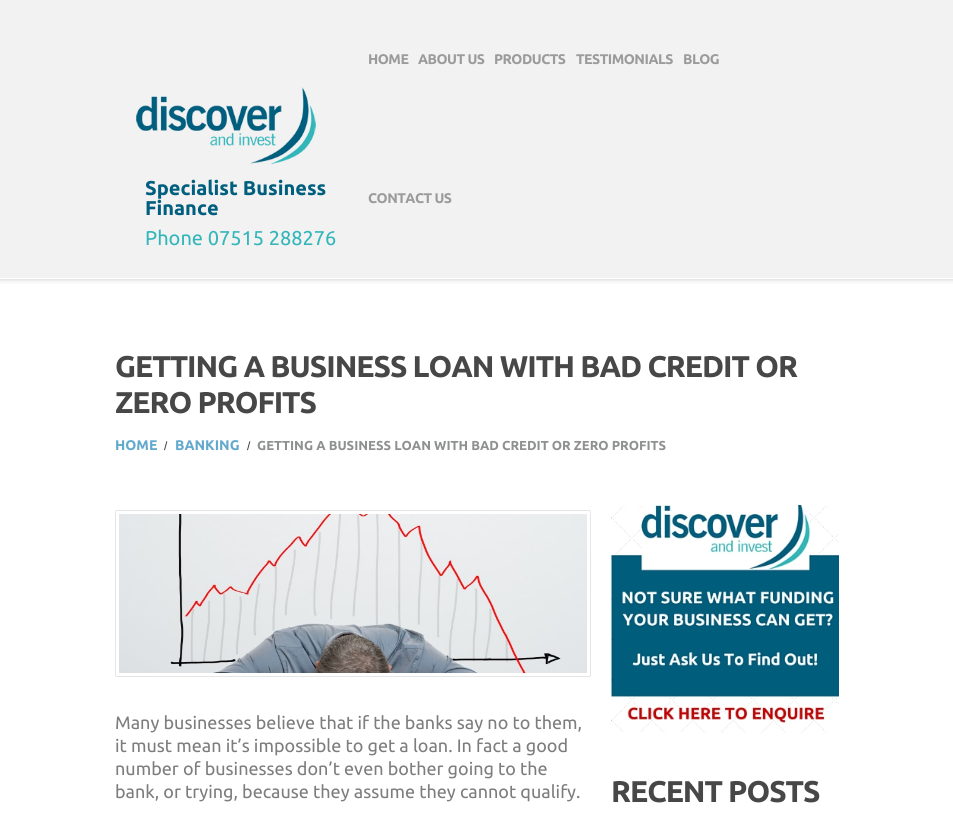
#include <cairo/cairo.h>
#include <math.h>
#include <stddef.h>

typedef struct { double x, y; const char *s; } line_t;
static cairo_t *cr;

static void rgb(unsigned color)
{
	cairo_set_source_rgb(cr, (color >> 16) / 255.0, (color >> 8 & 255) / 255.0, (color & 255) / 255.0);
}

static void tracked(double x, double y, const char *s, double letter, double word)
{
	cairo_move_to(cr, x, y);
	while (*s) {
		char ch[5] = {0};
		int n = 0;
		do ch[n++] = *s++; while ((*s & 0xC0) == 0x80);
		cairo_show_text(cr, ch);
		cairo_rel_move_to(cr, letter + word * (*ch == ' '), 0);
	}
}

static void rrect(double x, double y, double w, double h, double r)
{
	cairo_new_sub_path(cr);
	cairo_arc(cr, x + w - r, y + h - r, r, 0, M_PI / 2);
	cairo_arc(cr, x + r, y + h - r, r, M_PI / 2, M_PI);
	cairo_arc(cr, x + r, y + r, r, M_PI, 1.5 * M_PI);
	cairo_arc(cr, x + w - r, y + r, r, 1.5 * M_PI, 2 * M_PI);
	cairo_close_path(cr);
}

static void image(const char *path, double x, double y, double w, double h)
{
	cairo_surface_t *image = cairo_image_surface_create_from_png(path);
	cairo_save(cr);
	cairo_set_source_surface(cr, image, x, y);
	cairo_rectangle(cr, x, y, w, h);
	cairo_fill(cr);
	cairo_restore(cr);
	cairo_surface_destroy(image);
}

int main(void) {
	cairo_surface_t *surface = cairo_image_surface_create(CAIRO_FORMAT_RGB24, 953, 813);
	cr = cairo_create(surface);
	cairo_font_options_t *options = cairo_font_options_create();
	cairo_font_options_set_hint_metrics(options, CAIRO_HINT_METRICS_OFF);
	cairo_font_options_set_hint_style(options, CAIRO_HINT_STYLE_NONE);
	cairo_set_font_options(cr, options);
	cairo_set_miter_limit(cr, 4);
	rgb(0xffffff);
	cairo_paint(cr);
	rgb(0xf2f2f2);
	cairo_rectangle(cr, 0, 0, 953, 278);
	cairo_fill(cr);
	image("img/1.png", 136, 86, 180, 79);
	image("img/2.png", 0, 280, 953, 4);
	rgb(0xe6e6e6);
	cairo_rectangle(cr, 0, 279, 953, 1);
	cairo_fill(cr);
	rrect(115.5, 510.5, 475, 166, 1.5);
	rgb(0xe5e5e5);
	cairo_set_line_width(cr, 1);
	cairo_stroke(cr);
	image("img/3.png", 119, 514, 468, 159);
	image("img/4.png", 611, 505, 228, 228);
	cairo_select_font_face(cr, "Ubuntu", CAIRO_FONT_SLANT_NORMAL, CAIRO_FONT_WEIGHT_BOLD);
	cairo_set_font_size(cr, 14);
	rgb(0x9b9b9b);
	{
		static const line_t items[] = {
			{368, 64, "HOME"},
			{418, 64, "ABOUT US"},
			{494, 64, "PRODUCTS"},
			{576, 64, "TESTIMONIALS"},
			{683, 64, "BLOG"},
			{368, 203, "CONTACT US"},
		};
		for (size_t i = 0; i < sizeof items / sizeof *items; i++) {
			tracked(items[i].x, items[i].y, items[i].s, -0.5, 0);
		}
	}
	cairo_set_font_size(cr, 20);
	rgb(0x005e7e);
	cairo_move_to(cr, 145, 195);
	cairo_show_text(cr, "Specialist Business");
	cairo_move_to(cr, 145, 215);
	cairo_show_text(cr, "Finance");
	cairo_select_font_face(cr, "Ubuntu", CAIRO_FONT_SLANT_NORMAL, CAIRO_FONT_WEIGHT_NORMAL);
	rgb(0x33b6ba);
	cairo_move_to(cr, 145, 245);
	cairo_show_text(cr, "Phone 07515 288276");
	cairo_select_font_face(cr, "Ubuntu", CAIRO_FONT_SLANT_NORMAL, CAIRO_FONT_WEIGHT_BOLD);
	cairo_set_font_size(cr, 30);
	rgb(0x474747);
	tracked(115, 377, "GETTING A BUSINESS LOAN WITH BAD CREDIT OR", -1, 0);
	tracked(115, 413, "ZERO PROFITS", -1, 0);
	cairo_set_font_size(cr, 14);
	rgb(0x63a9cd);
	cairo_move_to(cr, 115, 450);
	cairo_show_text(cr, "HOME");
	cairo_select_font_face(cr, "Liberation Sans", CAIRO_FONT_SLANT_NORMAL, CAIRO_FONT_WEIGHT_NORMAL);
	cairo_set_font_size(cr, 12);
	rgb(0x333333);
	cairo_move_to(cr, 164, 450);
	cairo_show_text(cr, "/");
	cairo_select_font_face(cr, "Ubuntu", CAIRO_FONT_SLANT_NORMAL, CAIRO_FONT_WEIGHT_BOLD);
	cairo_set_font_size(cr, 14);
	rgb(0x63a9cd);
	cairo_move_to(cr, 175, 450);
	cairo_show_text(cr, "BANKING");
	cairo_select_font_face(cr, "Liberation Sans", CAIRO_FONT_SLANT_NORMAL, CAIRO_FONT_WEIGHT_NORMAL);
	cairo_set_font_size(cr, 12);
	rgb(0x333333);
	cairo_move_to(cr, 247, 450);
	cairo_show_text(cr, "/");
	cairo_select_font_face(cr, "Ubuntu", CAIRO_FONT_SLANT_NORMAL, CAIRO_FONT_WEIGHT_BOLD);
	cairo_set_font_size(cr, 13);
	rgb(0x8f9090);
	cairo_move_to(cr, 257, 450);
	cairo_show_text(cr, "GETTING A BUSINESS LOAN WITH BAD CREDIT OR ZERO PROFITS");
	cairo_select_font_face(cr, "Ubuntu", CAIRO_FONT_SLANT_NORMAL, CAIRO_FONT_WEIGHT_NORMAL);
	cairo_set_font_size(cr, 18);
	rgb(0x7d7d7d);
	{
		static const line_t items[] = {
			{115, 729, "Many businesses believe that if the banks say no to them,"},
			{115, 752, "it must mean it’s impossible to get a loan. In fact a good"},
			{115, 775, "number of businesses don’t even bother going to the"},
			{115, 798, "bank, or trying, because they assume they cannot qualify."},
		};
		for (size_t i = 0; i < sizeof items / sizeof *items; i++) {
			cairo_move_to(cr, items[i].x, items[i].y);
			cairo_show_text(cr, items[i].s);
		}
	}
	cairo_select_font_face(cr, "Ubuntu", CAIRO_FONT_SLANT_NORMAL, CAIRO_FONT_WEIGHT_BOLD);
	cairo_set_font_size(cr, 30);
	rgb(0x474747);
	tracked(611, 802, "RECENT POSTS", -1, 0);
	cairo_surface_write_to_png(surface, "page.png");
	cairo_font_options_destroy(options);
	cairo_destroy(cr);
	cairo_surface_destroy(surface);
	return 0;
}
